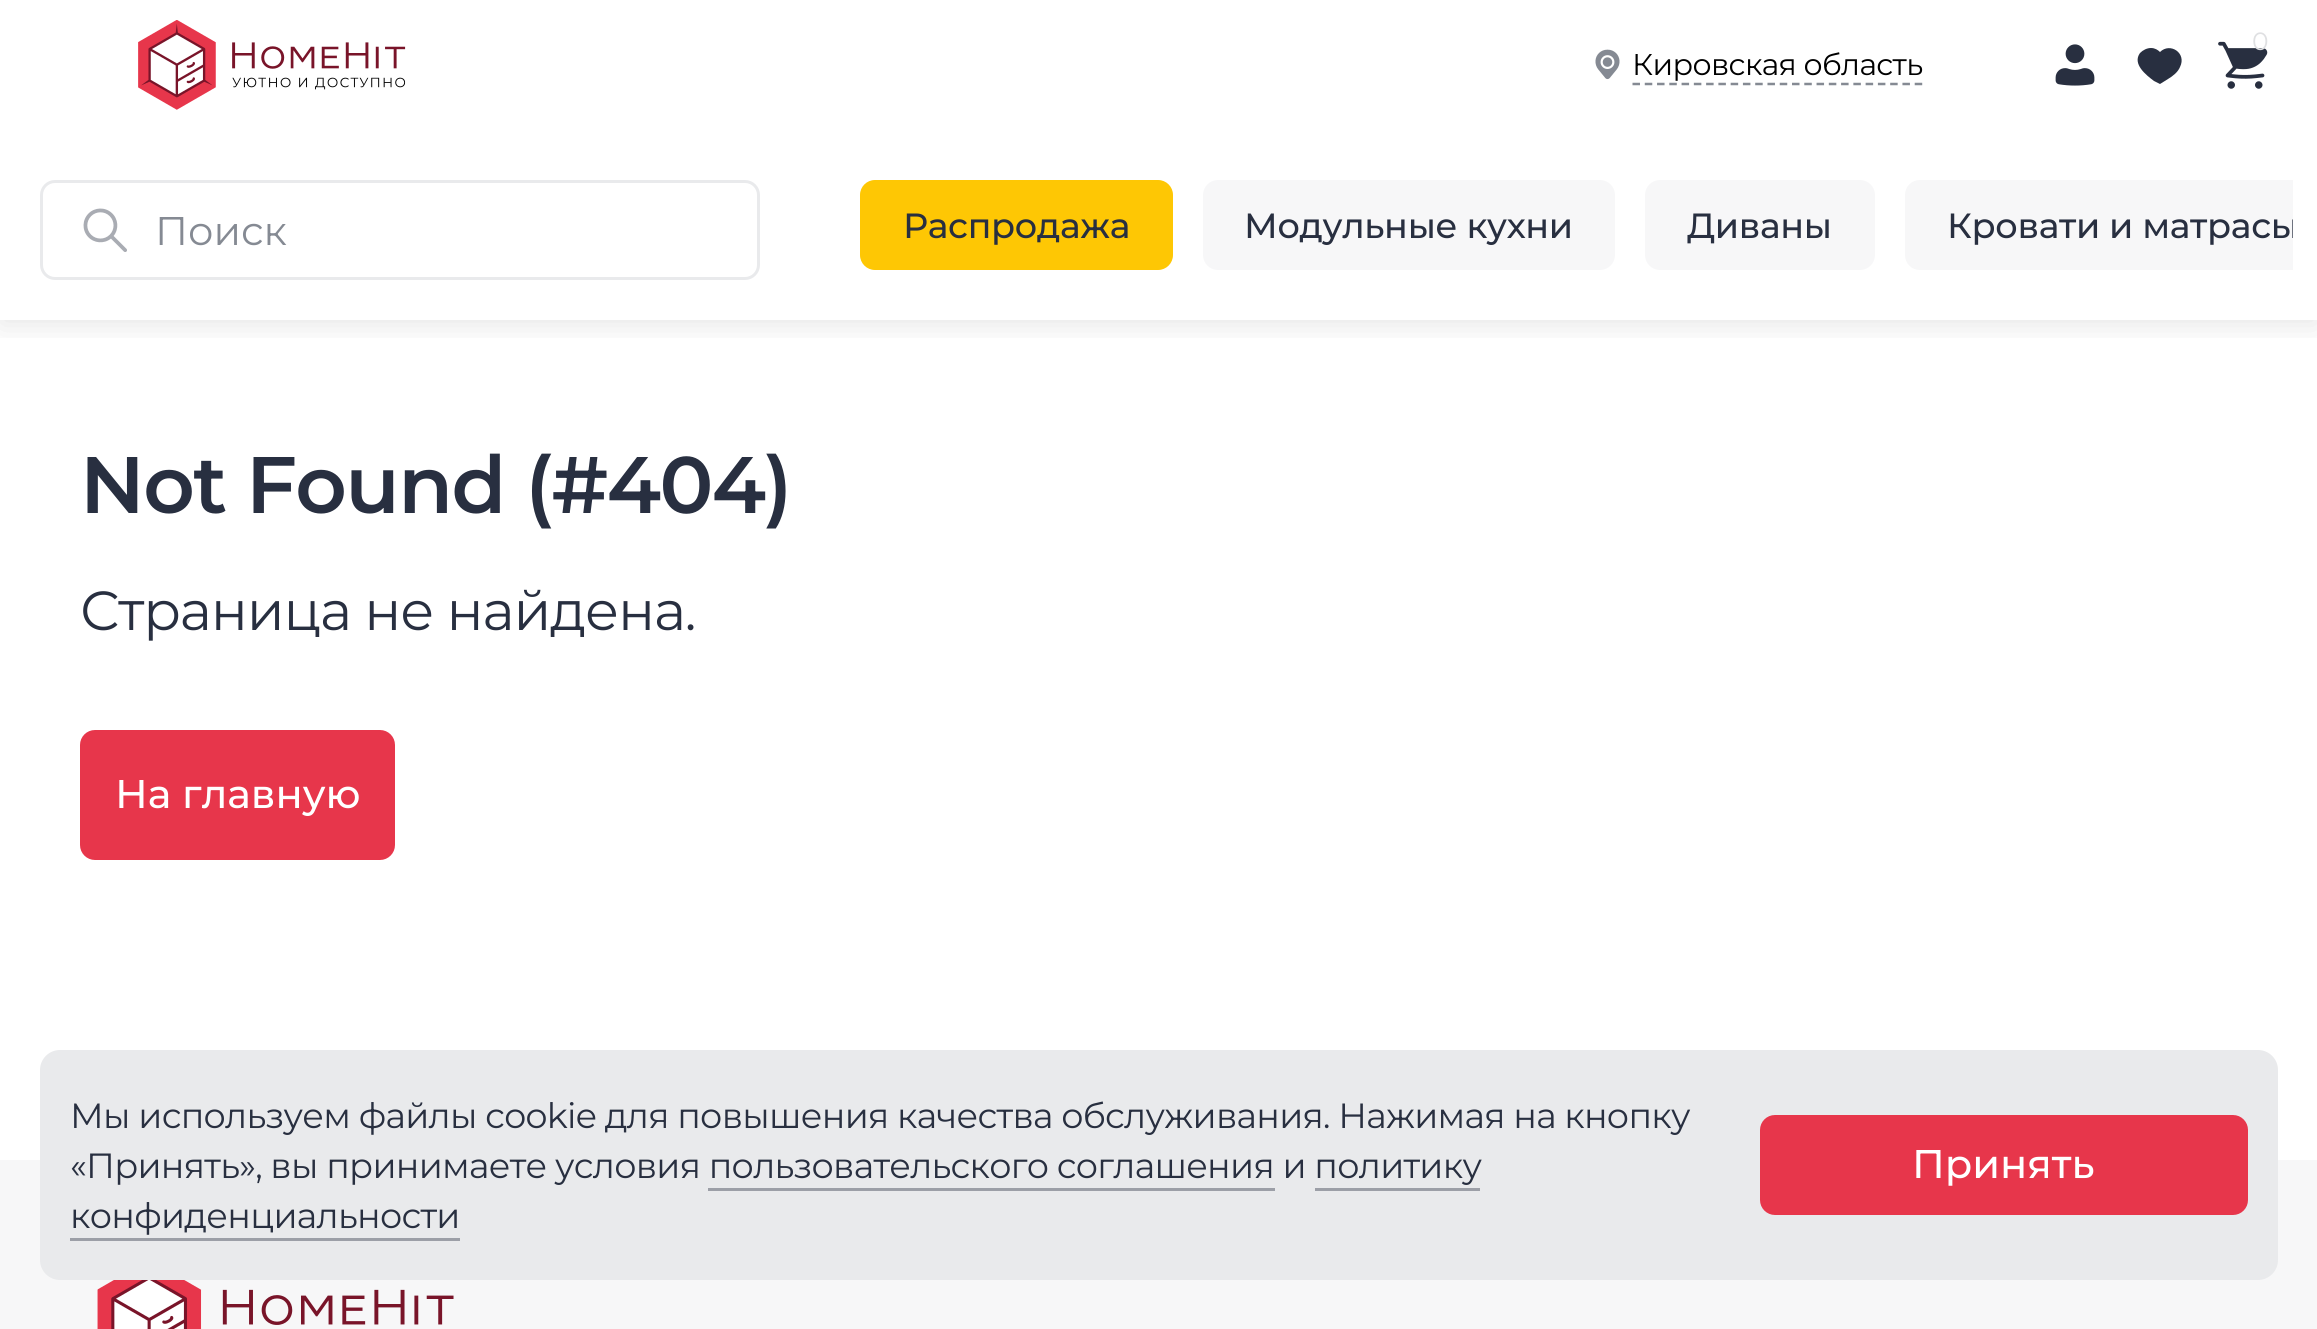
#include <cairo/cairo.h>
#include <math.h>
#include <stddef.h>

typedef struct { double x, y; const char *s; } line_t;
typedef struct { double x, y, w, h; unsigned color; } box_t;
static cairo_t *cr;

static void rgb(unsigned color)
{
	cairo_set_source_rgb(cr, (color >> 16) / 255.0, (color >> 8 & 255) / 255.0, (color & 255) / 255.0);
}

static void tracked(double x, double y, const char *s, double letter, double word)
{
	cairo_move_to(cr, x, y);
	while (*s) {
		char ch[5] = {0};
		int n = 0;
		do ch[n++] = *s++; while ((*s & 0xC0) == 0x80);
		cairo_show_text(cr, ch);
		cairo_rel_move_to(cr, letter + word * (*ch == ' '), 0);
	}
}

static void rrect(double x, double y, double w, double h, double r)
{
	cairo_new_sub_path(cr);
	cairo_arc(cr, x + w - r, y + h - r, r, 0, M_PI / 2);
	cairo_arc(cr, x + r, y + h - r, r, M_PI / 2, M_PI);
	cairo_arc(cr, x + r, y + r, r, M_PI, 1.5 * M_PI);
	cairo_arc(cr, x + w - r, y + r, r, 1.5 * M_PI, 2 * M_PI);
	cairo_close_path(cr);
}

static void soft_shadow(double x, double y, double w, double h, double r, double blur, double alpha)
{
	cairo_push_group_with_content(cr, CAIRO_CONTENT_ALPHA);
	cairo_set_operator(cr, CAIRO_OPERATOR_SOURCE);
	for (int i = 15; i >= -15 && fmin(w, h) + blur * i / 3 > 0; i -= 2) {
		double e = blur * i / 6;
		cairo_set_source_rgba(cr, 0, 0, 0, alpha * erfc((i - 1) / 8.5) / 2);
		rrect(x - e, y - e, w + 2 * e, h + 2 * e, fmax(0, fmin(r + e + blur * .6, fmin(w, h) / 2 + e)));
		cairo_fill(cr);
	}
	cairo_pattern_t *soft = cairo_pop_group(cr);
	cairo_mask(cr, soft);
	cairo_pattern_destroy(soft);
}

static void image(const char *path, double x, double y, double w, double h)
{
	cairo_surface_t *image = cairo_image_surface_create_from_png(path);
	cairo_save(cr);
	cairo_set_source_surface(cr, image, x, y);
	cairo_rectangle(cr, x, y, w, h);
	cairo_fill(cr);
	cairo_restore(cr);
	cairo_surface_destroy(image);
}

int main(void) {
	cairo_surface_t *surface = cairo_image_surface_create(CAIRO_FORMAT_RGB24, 2317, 1329);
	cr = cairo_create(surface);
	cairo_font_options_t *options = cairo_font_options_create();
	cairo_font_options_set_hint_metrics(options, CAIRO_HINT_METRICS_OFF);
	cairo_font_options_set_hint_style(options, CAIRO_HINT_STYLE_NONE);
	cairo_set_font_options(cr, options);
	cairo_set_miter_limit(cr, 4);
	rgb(0xffffff);
	cairo_paint(cr);
	cairo_save(cr);
	cairo_rectangle(cr, 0, 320, 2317, 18);
	cairo_clip(cr);
	rgb(0x000000);
	soft_shadow(0, 5, 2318, 320, 0, 15, 0.1);
	cairo_restore(cr);
	image("img/1.png", 138, 20, 268, 90);
	image("img/2.png", 2218, 41, 50, 48);
	image("img/3.png", 2055, 44, 40, 42);
	rgb(0x282f40);
	cairo_set_fill_rule(cr, CAIRO_FILL_RULE_EVEN_ODD);
	cairo_new_path(cr);
	cairo_move_to(cr, 2151, 48);
	cairo_curve_to(cr, 2147, 48, 2143, 50, 2140, 53);
	cairo_curve_to(cr, 2132, 64, 2146, 75, 2154, 81);
	cairo_line_to(cr, 2160, 84);
	cairo_line_to(cr, 2168, 79);
	cairo_curve_to(cr, 2173, 76, 2178, 72, 2180, 67);
	cairo_curve_to(cr, 2187, 53, 2170, 42, 2160, 52);
	cairo_curve_to(cr, 2158, 50, 2155, 48, 2151, 48);
	cairo_close_path(cr);
	cairo_fill(cr);
	image("img/4.png", 1595, 49, 25, 31);
	cairo_new_path(cr);
	cairo_move_to(cr, 1632.5, 84);
	cairo_line_to(cr, 1922.5, 84);
	rgb(0x858a93);
	cairo_set_line_width(cr, 2.5);
	cairo_set_dash(cr, (double[]){7.5, 4.77}, 2, 0);
	cairo_stroke(cr);
	rrect(41.5, 181.5, 717, 97, 13.5);
	rgb(0xe9eaec);
	cairo_set_line_width(cr, 3);
	cairo_set_dash(cr, NULL, 0, 0);
	cairo_stroke(cr);
	image("img/5.png", 83, 208, 44, 44);
	rgb(0xfec704);
	rrect(860, 180, 313, 90, 15);
	cairo_fill(cr);
	rgb(0xf7f7f8);
	rrect(1203, 180, 412, 90, 15);
	cairo_fill(cr);
	rrect(1645, 180, 230, 90, 15);
	cairo_fill(cr);
	cairo_new_path(cr);
	cairo_move_to(cr, 1920, 180);
	cairo_line_to(cr, 2293, 180);
	cairo_line_to(cr, 2293, 270);
	cairo_line_to(cr, 1920, 270);
	cairo_curve_to(cr, 1911.5, 270, 1905, 263.5, 1905, 255);
	cairo_line_to(cr, 1905, 195);
	cairo_curve_to(cr, 1905, 186.5, 1911.5, 180, 1920, 180);
	cairo_close_path(cr);
	cairo_fill(cr);
	rgb(0xe7364b);
	rrect(81.5, 731.5, 312, 127, 13.5);
	cairo_fill_preserve(cr);
	cairo_stroke(cr);
	rgb(0xf7f7f8);
	cairo_rectangle(cr, 0, 1160, 2317, 169);
	cairo_fill(cr);
	rgb(0xe9eaec);
	rrect(40, 1050, 2238, 230, 20);
	cairo_fill(cr);
	{
		static const box_t items[] = {
			{708, 1188, 567, 3, 0x9c9fa7},
			{1315, 1188, 165, 3, 0x9c9fa7},
			{70, 1238, 390, 3, 0x9c9fa7},
		};
		for (size_t i = 0; i < sizeof items / sizeof *items; i++) {
			rgb(items[i].color);
			cairo_rectangle(cr, items[i].x, items[i].y, items[i].w, items[i].h);
			cairo_fill(cr);
		}
	}
	rgb(0xe7364b);
	rrect(1761.5, 1116.5, 485, 97, 13.5);
	cairo_fill_preserve(cr);
	cairo_stroke(cr);
	image("img/6.png", 97, 1280, 357, 49);
	cairo_select_font_face(cr, "Montserrat", CAIRO_FONT_SLANT_NORMAL, CAIRO_FONT_WEIGHT_NORMAL);
	cairo_set_font_size(cr, 25);
	rgb(0xdfe0e2);
	cairo_move_to(cr, 2252, 50);
	cairo_show_text(cr, "0");
	cairo_set_font_size(cr, 30);
	rgb(0x000000);
	tracked(1632, 75, "Кировская область", -0.6, 0);
	cairo_set_font_size(cr, 40);
	rgb(0x858a93);
	cairo_move_to(cr, 155, 245);
	cairo_show_text(cr, "Поиск");
	cairo_select_font_face(cr, "Montserrat Medium", CAIRO_FONT_SLANT_NORMAL, CAIRO_FONT_WEIGHT_NORMAL);
	cairo_set_font_size(cr, 35);
	rgb(0x282f40);
	{
		static const line_t items[] = {
			{903, 238, "Распродажа"},
			{1244, 238, "Модульные кухни"},
			{1687, 238, "Диваны"},
		};
		for (size_t i = 0; i < sizeof items / sizeof *items; i++) {
			tracked(items[i].x, items[i].y, items[i].s, -0.3, 0);
		}
	}
	cairo_save(cr);
	cairo_set_fill_rule(cr, CAIRO_FILL_RULE_WINDING);
	cairo_rectangle(cr, 845, 180, 1448, 90);
	cairo_clip(cr);
	tracked(1947, 238, "Кровати и матрасы", -0.3, 0);
	cairo_restore(cr);
	cairo_select_font_face(cr, "Montserrat SemiBold", CAIRO_FONT_SLANT_NORMAL, CAIRO_FONT_WEIGHT_NORMAL);
	cairo_set_font_size(cr, 80);
	tracked(80, 513, "Not Found (#404)", -1.6, 0);
	cairo_select_font_face(cr, "Montserrat", CAIRO_FONT_SLANT_NORMAL, CAIRO_FONT_WEIGHT_NORMAL);
	cairo_set_font_size(cr, 55);
	tracked(80, 630, "Страница не найдена.", -1.1, 0);
	cairo_select_font_face(cr, "Montserrat Medium", CAIRO_FONT_SLANT_NORMAL, CAIRO_FONT_WEIGHT_NORMAL);
	cairo_set_font_size(cr, 40);
	rgb(0xffffff);
	cairo_move_to(cr, 115, 808);
	cairo_show_text(cr, "На главную");
	cairo_select_font_face(cr, "Montserrat", CAIRO_FONT_SLANT_NORMAL, CAIRO_FONT_WEIGHT_NORMAL);
	cairo_set_font_size(cr, 35);
	rgb(0x282f40);
	{
		static const line_t items[] = {
			{70, 1128, "Мы используем файлы cookie для повышения качества обслуживания. Нажимая на кнопку"},
			{70, 1178, "«Принять», вы принимаете условия пользовательского соглашения и политику"},
			{70, 1228, "конфиденциальности"},
		};
		for (size_t i = 0; i < sizeof items / sizeof *items; i++) {
			tracked(items[i].x, items[i].y, items[i].s, -0.7, 0);
		}
	}
	cairo_select_font_face(cr, "Montserrat Medium", CAIRO_FONT_SLANT_NORMAL, CAIRO_FONT_WEIGHT_NORMAL);
	cairo_set_font_size(cr, 40);
	rgb(0xffffff);
	cairo_move_to(cr, 1912, 1178);
	cairo_show_text(cr, "Принять");
	cairo_surface_write_to_png(surface, "page.png");
	cairo_font_options_destroy(options);
	cairo_destroy(cr);
	cairo_surface_destroy(surface);
	return 0;
}
